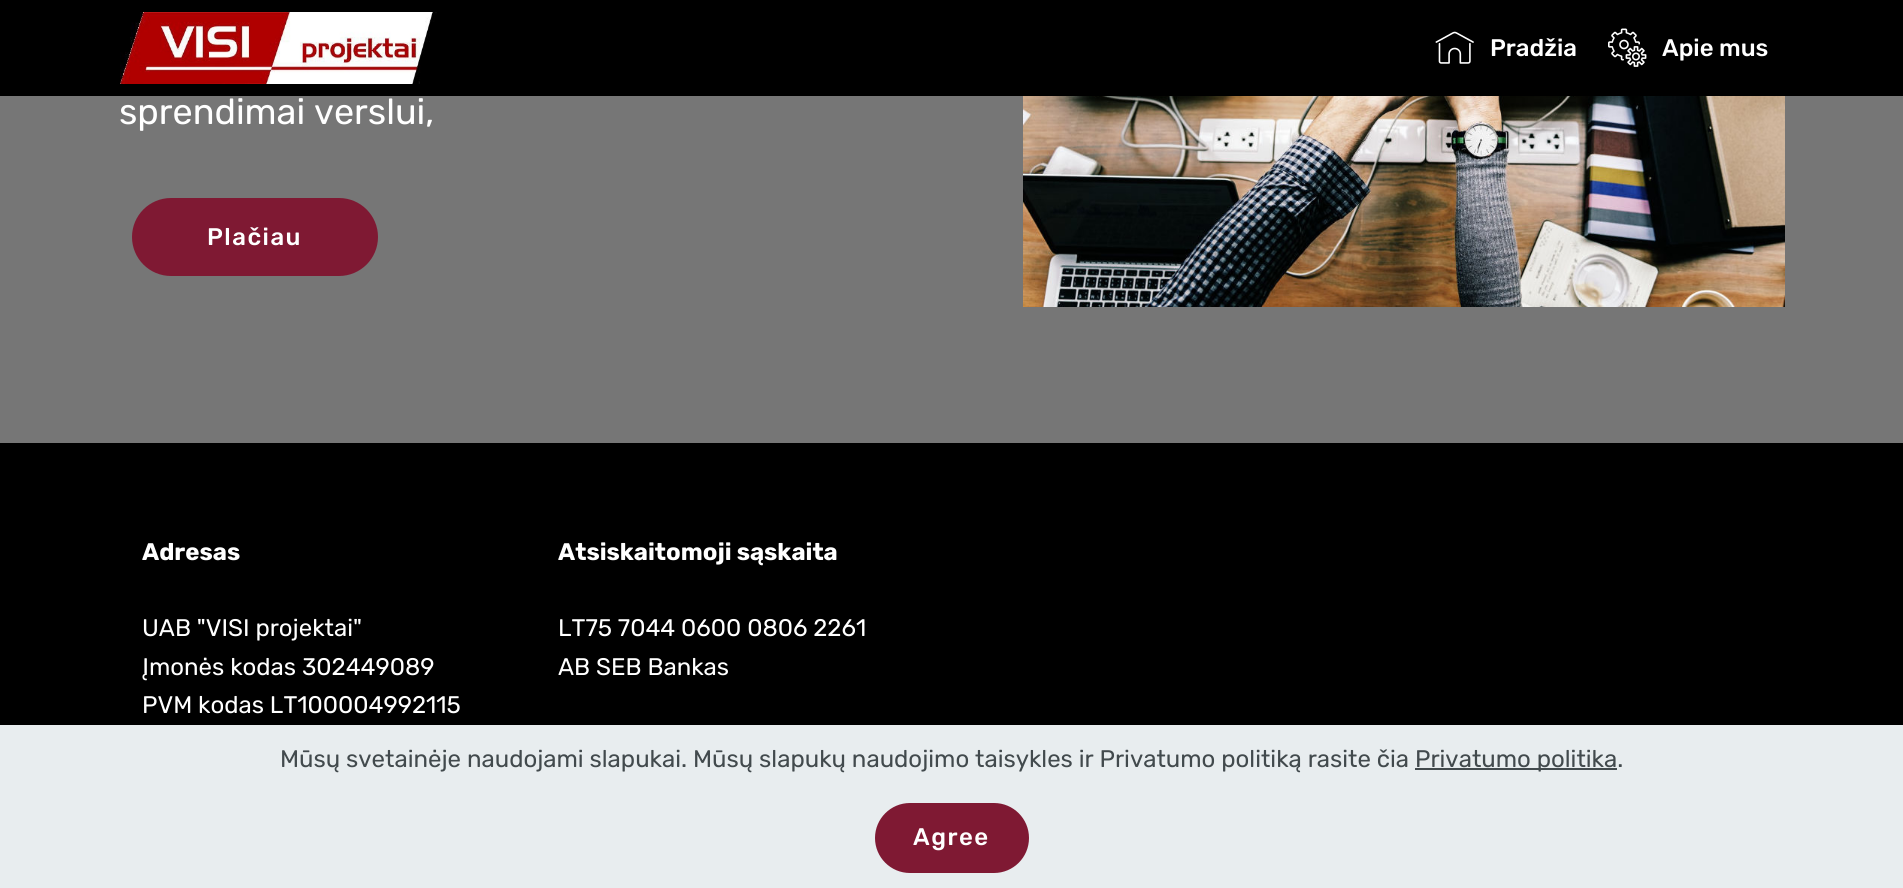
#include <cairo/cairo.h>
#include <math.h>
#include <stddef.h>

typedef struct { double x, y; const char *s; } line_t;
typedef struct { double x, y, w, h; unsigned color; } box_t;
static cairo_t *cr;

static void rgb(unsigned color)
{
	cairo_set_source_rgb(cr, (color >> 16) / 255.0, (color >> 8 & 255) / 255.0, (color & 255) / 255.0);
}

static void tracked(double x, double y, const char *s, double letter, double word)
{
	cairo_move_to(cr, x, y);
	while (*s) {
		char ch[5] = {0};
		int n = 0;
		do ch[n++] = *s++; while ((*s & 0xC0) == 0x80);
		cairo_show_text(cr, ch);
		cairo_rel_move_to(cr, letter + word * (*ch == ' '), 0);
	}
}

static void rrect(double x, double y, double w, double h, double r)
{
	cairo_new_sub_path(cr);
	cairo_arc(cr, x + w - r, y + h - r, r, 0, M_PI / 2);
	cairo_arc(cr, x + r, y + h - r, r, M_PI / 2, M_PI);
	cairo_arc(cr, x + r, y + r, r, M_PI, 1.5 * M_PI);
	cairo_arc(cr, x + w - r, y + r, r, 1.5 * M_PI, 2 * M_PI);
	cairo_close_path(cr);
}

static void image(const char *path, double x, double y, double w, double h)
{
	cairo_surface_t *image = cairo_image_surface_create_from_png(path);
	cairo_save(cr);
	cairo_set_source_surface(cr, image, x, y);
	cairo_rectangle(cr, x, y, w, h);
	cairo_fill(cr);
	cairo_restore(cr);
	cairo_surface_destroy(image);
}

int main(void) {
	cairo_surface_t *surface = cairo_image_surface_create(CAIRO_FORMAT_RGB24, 1903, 888);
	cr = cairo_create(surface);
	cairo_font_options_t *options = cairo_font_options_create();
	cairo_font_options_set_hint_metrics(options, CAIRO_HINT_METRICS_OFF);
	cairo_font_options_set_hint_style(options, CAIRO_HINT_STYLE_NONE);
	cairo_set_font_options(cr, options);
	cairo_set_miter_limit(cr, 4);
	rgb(0x767676);
	cairo_paint(cr);
	rgb(0x000000);
	cairo_rectangle(cr, 0, 0, 1903, 96);
	cairo_fill(cr);
	image("img/1.png", 120, 12, 317, 72);
	image("img/2.png", 1435, 31, 39, 33);
	image("img/3.png", 1608, 28, 39, 39);
	rgb(0x7f1933);
	rrect(133.5, 199.5, 243, 75, 37.5);
	cairo_fill_preserve(cr);
	cairo_set_line_width(cr, 3);
	cairo_stroke(cr);
	image("img/4.png", 1023, 96, 762, 211);
	{
		static const box_t items[] = {
			{0, 443, 1903, 282, 0x000000},
			{0, 725, 1903, 163, 0xe8edef},
			{1415, 768, 202, 2, 0x424a4d},
		};
		for (size_t i = 0; i < sizeof items / sizeof *items; i++) {
			rgb(items[i].color);
			cairo_rectangle(cr, items[i].x, items[i].y, items[i].w, items[i].h);
			cairo_fill(cr);
		}
	}
	rgb(0x7f1933);
	rrect(876.5, 804.5, 151, 67, 33.5);
	cairo_fill_preserve(cr);
	cairo_stroke(cr);
	cairo_select_font_face(cr, "Rubik Medium", CAIRO_FONT_SLANT_NORMAL, CAIRO_FONT_WEIGHT_NORMAL);
	cairo_set_font_size(cr, 24);
	rgb(0xffffff);
	cairo_move_to(cr, 1490, 56);
	cairo_show_text(cr, "Pradžia");
	cairo_move_to(cr, 1662, 56);
	cairo_show_text(cr, "Apie mus");
	cairo_select_font_face(cr, "Rubik", CAIRO_FONT_SLANT_NORMAL, CAIRO_FONT_WEIGHT_NORMAL);
	cairo_set_font_size(cr, 36);
	cairo_move_to(cr, 119, 124);
	cairo_show_text(cr, "sprendimai verslui,");
	cairo_select_font_face(cr, "Rubik Medium", CAIRO_FONT_SLANT_NORMAL, CAIRO_FONT_WEIGHT_NORMAL);
	cairo_set_font_size(cr, 24);
	tracked(207, 245, "Plačiau", 1.5, 0);
	cairo_select_font_face(cr, "Rubik", CAIRO_FONT_SLANT_NORMAL, CAIRO_FONT_WEIGHT_BOLD);
	cairo_move_to(cr, 142, 560);
	cairo_show_text(cr, "Adresas");
	cairo_select_font_face(cr, "Rubik", CAIRO_FONT_SLANT_NORMAL, CAIRO_FONT_WEIGHT_NORMAL);
	{
		static const line_t items[] = {
			{142, 636, "UAB \"VISI projektai\""},
			{142, 675, "Įmonės kodas 302449089"},
			{142, 713, "PVM kodas LT100004992115"},
		};
		for (size_t i = 0; i < sizeof items / sizeof *items; i++) {
			cairo_move_to(cr, items[i].x, items[i].y);
			cairo_show_text(cr, items[i].s);
		}
	}
	cairo_select_font_face(cr, "Rubik", CAIRO_FONT_SLANT_NORMAL, CAIRO_FONT_WEIGHT_BOLD);
	cairo_move_to(cr, 558, 560);
	cairo_show_text(cr, "Atsiskaitomoji sąskaita");
	cairo_select_font_face(cr, "Rubik", CAIRO_FONT_SLANT_NORMAL, CAIRO_FONT_WEIGHT_NORMAL);
	cairo_move_to(cr, 558, 636);
	cairo_show_text(cr, "LT75 7044 0600 0806 2261");
	cairo_move_to(cr, 558, 675);
	cairo_show_text(cr, "AB SEB Bankas");
	rgb(0x424a4d);
	cairo_move_to(cr, 280, 767);
	cairo_show_text(cr, "Mūsų svetainėje naudojami slapukai. Mūsų slapukų naudojimo taisykles ir Privatumo politiką rasite čia");
	cairo_move_to(cr, 1415, 767);
	cairo_show_text(cr, "Privatumo politika.");
	cairo_select_font_face(cr, "Rubik Medium", CAIRO_FONT_SLANT_NORMAL, CAIRO_FONT_WEIGHT_NORMAL);
	rgb(0xffffff);
	tracked(913, 845, "Agree", 1.5, 0);
	cairo_surface_write_to_png(surface, "page.png");
	cairo_font_options_destroy(options);
	cairo_destroy(cr);
	cairo_surface_destroy(surface);
	return 0;
}
